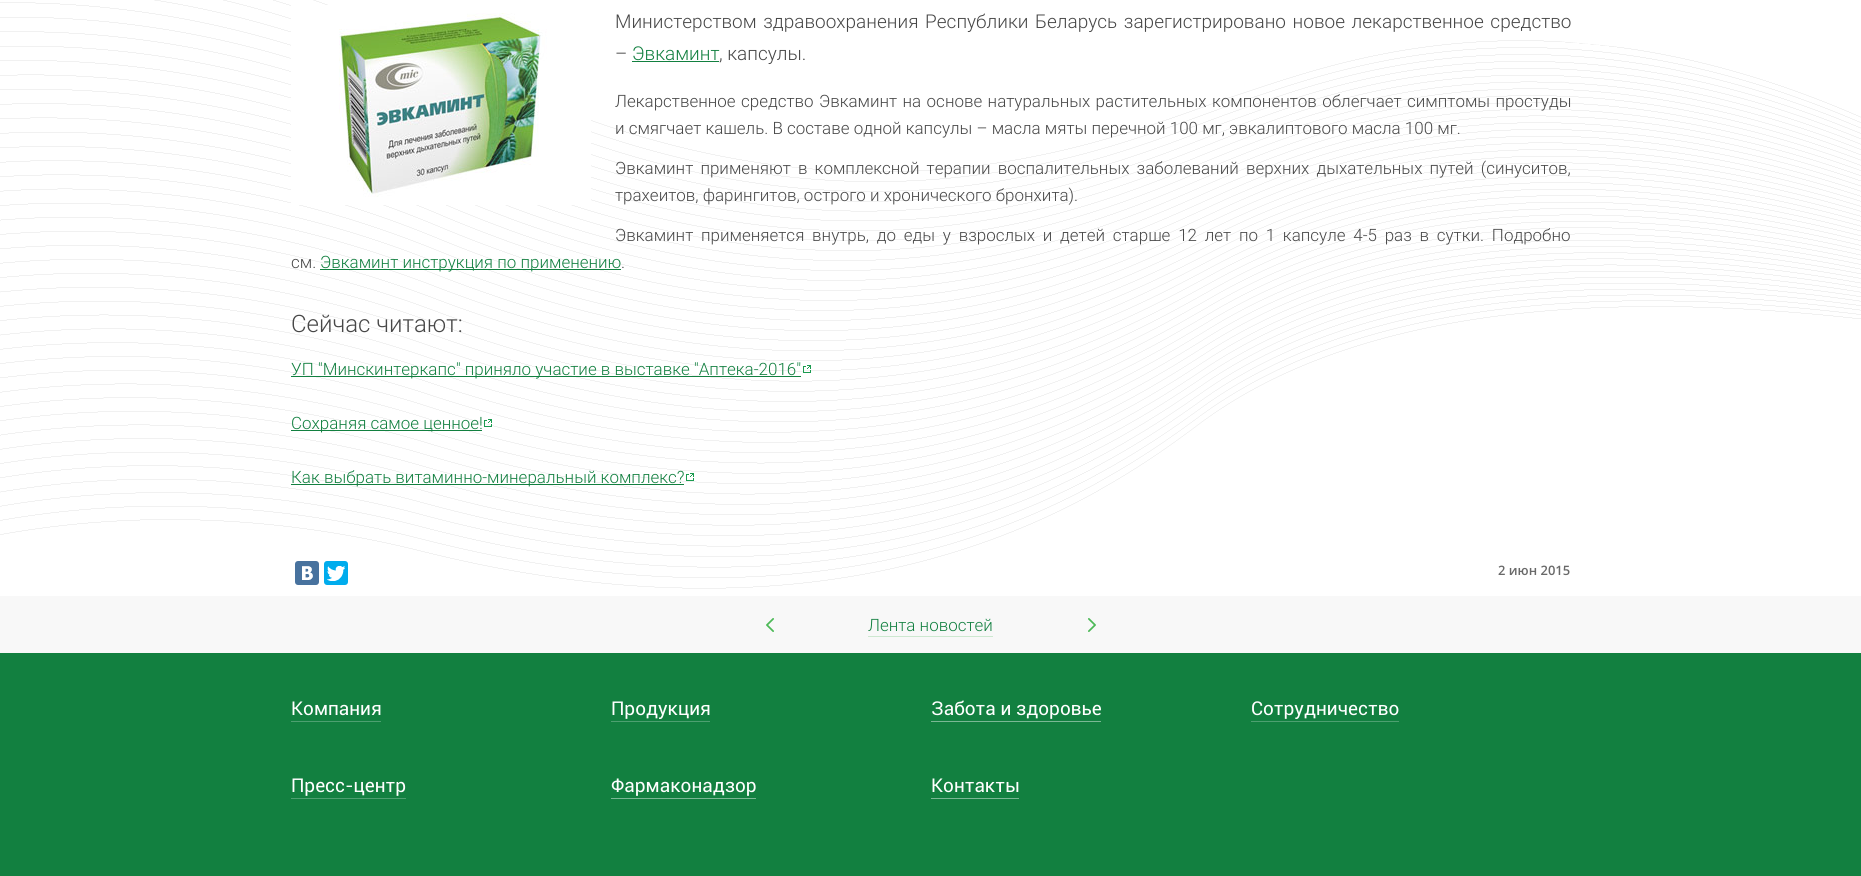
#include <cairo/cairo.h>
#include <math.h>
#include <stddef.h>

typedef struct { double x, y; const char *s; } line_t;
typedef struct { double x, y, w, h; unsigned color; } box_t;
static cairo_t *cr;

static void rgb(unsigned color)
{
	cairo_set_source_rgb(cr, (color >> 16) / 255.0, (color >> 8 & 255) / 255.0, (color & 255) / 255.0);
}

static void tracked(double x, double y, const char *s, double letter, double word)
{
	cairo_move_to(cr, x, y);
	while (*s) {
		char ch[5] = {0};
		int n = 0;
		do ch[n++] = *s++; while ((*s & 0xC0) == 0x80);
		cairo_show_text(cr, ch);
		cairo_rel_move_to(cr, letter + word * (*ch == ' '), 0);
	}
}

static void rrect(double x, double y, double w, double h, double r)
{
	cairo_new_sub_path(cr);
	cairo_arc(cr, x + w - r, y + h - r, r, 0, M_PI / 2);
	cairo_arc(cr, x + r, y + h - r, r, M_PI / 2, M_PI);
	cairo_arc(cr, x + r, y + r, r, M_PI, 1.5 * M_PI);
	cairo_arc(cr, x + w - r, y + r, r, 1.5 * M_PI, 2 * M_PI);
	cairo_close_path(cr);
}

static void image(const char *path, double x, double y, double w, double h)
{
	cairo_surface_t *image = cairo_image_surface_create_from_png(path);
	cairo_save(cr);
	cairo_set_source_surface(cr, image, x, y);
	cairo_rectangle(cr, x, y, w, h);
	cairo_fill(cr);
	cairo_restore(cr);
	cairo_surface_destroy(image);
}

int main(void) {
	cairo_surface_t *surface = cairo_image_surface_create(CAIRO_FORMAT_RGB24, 1861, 876);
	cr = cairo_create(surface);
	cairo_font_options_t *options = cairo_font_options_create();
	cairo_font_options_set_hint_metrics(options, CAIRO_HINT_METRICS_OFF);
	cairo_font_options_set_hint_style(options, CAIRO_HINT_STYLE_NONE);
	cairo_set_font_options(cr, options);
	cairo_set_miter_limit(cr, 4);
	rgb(0xffffff);
	cairo_paint(cr);
	image("img/1.png", 0, 0, 1861, 589);
	image("img/2.png", 291, 5, 300, 200);
	{
		static const box_t items[] = {
			{632, 61, 87, 1, 0x128040},
			{320, 269, 301, 1, 0x128040},
			{291, 376, 510, 1, 0x128040},
		};
		for (size_t i = 0; i < sizeof items / sizeof *items; i++) {
			rgb(items[i].color);
			cairo_rectangle(cr, items[i].x, items[i].y, items[i].w, items[i].h);
			cairo_fill(cr);
		}
	}
	image("img/3.png", 803, 365, 8, 8);
	cairo_rectangle(cr, 291, 430, 191, 1);
	cairo_fill(cr);
	image("img/4.png", 484, 419, 8, 8);
	cairo_rectangle(cr, 291, 484, 393, 1);
	cairo_fill(cr);
	image("img/5.png", 686, 473, 8, 8);
	rgb(0x48729e);
	rrect(295, 561, 24, 24, 3);
	cairo_fill(cr);
	image("img/6.png", 302, 566, 11, 14);
	rgb(0x00aced);
	rrect(324, 561, 24, 24, 3);
	cairo_fill(cr);
	image("img/7.png", 327, 566, 18, 15);
	rgb(0xf8f8f8);
	cairo_rectangle(cr, 0, 596, 1861, 57);
	cairo_fill(cr);
	image("img/8.png", 766, 618, 8, 14);
	rgb(0xcde8d0);
	cairo_rectangle(cr, 868, 636, 125, 1);
	cairo_fill(cr);
	image("img/9.png", 1088, 618, 8, 14);
	{
		static const box_t items[] = {
			{0, 653, 1861, 223, 0x128040},
			{291, 721, 90, 1, 0x4da070},
			{611, 721, 99, 1, 0x4da070},
			{931, 721, 170, 1, 0x7ab894},
			{1251, 721, 148, 1, 0x4da070},
			{291, 798, 115, 1, 0x4da070},
			{611, 798, 145, 1, 0x7ab894},
			{931, 798, 88, 1, 0x7ab894},
		};
		for (size_t i = 0; i < sizeof items / sizeof *items; i++) {
			rgb(items[i].color);
			cairo_rectangle(cr, items[i].x, items[i].y, items[i].w, items[i].h);
			cairo_fill(cr);
		}
	}
	cairo_select_font_face(cr, "Roboto Light", CAIRO_FONT_SLANT_NORMAL, CAIRO_FONT_WEIGHT_NORMAL);
	cairo_set_font_size(cr, 19);
	rgb(0x474747);
	tracked(615, 28, "Министерством здравоохранения Республики Беларусь зарегистрировано новое лекарственное средство", 0, 2);
	cairo_move_to(cr, 615, 60);
	cairo_show_text(cr, "–");
	rgb(0x128040);
	cairo_move_to(cr, 632, 60);
	cairo_show_text(cr, "Эвкаминт");
	rgb(0x474747);
	cairo_move_to(cr, 719, 60);
	cairo_show_text(cr, ", капсулы.");
	cairo_set_font_size(cr, 17);
	tracked(615, 107, "Лекарственное средство Эвкаминт на основе натуральных растительных компонентов облегчает симптомы простуды", 0, 1.25);
	cairo_move_to(cr, 615, 134);
	cairo_show_text(cr, "и смягчает кашель. В составе одной капсулы – масла мяты перечной 100 мг, эвкалиптового масла 100 мг.");
	tracked(615, 174, "Эвкаминт применяют в комплексной терапии воспалительных заболеваний верхних дыхательных путей (синуситов,", 0, 3);
	cairo_move_to(cr, 615, 201);
	cairo_show_text(cr, "трахеитов, фарингитов, острого и хронического бронхита).");
	tracked(615, 241, "Эвкаминт применяется внутрь, до еды у взрослых и детей старше 12 лет по 1 капсуле 4-5 раз в сутки. Подробно", 0, 3.6);
	cairo_move_to(cr, 291, 268);
	cairo_show_text(cr, "см.");
	rgb(0x128040);
	cairo_move_to(cr, 320, 268);
	cairo_show_text(cr, "Эвкаминт инструкция по применению");
	rgb(0x474747);
	cairo_move_to(cr, 621, 268);
	cairo_show_text(cr, ".");
	cairo_set_font_size(cr, 24);
	cairo_move_to(cr, 291, 332);
	cairo_show_text(cr, "Сейчас читают:");
	cairo_set_font_size(cr, 17);
	rgb(0x128040);
	{
		static const line_t items[] = {
			{291, 375, "УП \"Минскинтеркапс\" приняло участие в выставке \"Аптека-2016\""},
			{291, 429, "Сохраняя самое ценное!"},
			{291, 483, "Как выбрать витаминно-минеральный комплекс?"},
		};
		for (size_t i = 0; i < sizeof items / sizeof *items; i++) {
			cairo_move_to(cr, items[i].x, items[i].y);
			cairo_show_text(cr, items[i].s);
		}
	}
	cairo_select_font_face(cr, "Open Sans SemiBold", CAIRO_FONT_SLANT_NORMAL, CAIRO_FONT_WEIGHT_NORMAL);
	cairo_set_font_size(cr, 13);
	rgb(0x696969);
	cairo_move_to(cr, 1498, 575);
	cairo_show_text(cr, "2 июн 2015");
	cairo_select_font_face(cr, "Roboto Light", CAIRO_FONT_SLANT_NORMAL, CAIRO_FONT_WEIGHT_NORMAL);
	cairo_set_font_size(cr, 17);
	rgb(0x128040);
	cairo_move_to(cr, 868, 631);
	cairo_show_text(cr, "Лента новостей");
	cairo_select_font_face(cr, "Roboto", CAIRO_FONT_SLANT_NORMAL, CAIRO_FONT_WEIGHT_NORMAL);
	cairo_set_font_size(cr, 19);
	rgb(0xffffff);
	{
		static const line_t items[] = {
			{291, 715, "Компания"},
			{611, 715, "Продукция"},
			{931, 715, "Забота и здоровье"},
			{1251, 715, "Сотрудничество"},
			{291, 792, "Пресс-центр"},
			{611, 792, "Фармаконадзор"},
			{931, 792, "Контакты"},
		};
		for (size_t i = 0; i < sizeof items / sizeof *items; i++) {
			cairo_move_to(cr, items[i].x, items[i].y);
			cairo_show_text(cr, items[i].s);
		}
	}
	cairo_surface_write_to_png(surface, "page.png");
	cairo_font_options_destroy(options);
	cairo_destroy(cr);
	cairo_surface_destroy(surface);
	return 0;
}
